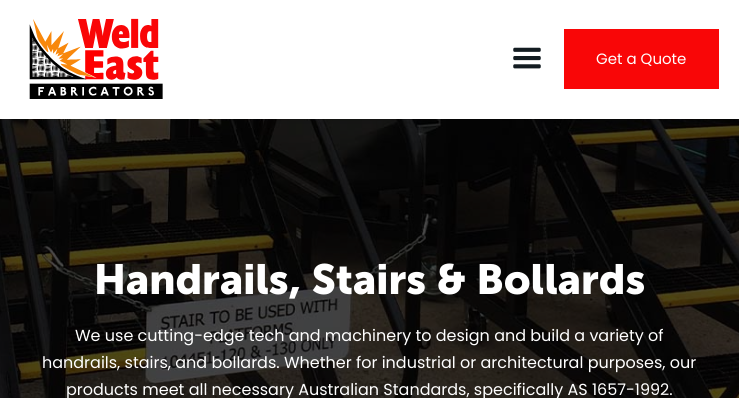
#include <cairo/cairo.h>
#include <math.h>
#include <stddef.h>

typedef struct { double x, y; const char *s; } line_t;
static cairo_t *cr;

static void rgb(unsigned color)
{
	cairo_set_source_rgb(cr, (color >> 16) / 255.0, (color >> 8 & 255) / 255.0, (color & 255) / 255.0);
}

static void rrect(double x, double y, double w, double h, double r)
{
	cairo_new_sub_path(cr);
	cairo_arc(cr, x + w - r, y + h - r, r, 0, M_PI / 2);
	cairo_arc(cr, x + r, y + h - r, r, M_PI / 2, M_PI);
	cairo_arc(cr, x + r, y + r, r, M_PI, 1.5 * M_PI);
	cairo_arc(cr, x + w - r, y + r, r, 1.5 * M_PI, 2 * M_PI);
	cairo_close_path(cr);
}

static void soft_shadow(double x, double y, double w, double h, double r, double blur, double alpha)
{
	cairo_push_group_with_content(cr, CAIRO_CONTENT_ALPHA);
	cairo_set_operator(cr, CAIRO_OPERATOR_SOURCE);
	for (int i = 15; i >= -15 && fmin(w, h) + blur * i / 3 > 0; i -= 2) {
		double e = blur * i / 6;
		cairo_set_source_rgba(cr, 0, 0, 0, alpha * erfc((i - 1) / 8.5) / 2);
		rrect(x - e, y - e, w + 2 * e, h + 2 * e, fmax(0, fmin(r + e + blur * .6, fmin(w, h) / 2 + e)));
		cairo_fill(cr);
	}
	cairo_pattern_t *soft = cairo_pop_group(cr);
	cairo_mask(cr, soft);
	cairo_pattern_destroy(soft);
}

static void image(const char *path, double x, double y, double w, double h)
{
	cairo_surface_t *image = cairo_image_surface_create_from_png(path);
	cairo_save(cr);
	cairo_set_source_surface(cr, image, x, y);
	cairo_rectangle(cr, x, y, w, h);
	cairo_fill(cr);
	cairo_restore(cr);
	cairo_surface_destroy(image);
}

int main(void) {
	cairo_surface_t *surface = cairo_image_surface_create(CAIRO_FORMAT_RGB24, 739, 398);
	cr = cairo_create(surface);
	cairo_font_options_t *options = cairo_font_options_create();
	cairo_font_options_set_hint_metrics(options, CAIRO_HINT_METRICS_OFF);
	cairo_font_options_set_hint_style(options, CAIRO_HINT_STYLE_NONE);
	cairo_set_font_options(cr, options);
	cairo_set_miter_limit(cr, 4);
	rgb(0xffffff);
	cairo_paint(cr);
	image("img/3.png", 0, 119, 739, 279);
	rgb(0x000000);
	soft_shadow(7, 7, 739, 119, 0, 10, 0.04);
	rgb(0xffffff);
	cairo_rectangle(cr, 0, 0, 739, 119);
	cairo_fill(cr);
	image("img/1.png", 29, 18, 134, 81);
	image("img/2.png", 513, 47, 28, 22);
	rgb(0xf90607);
	cairo_rectangle(cr, 564, 29, 155, 60);
	cairo_fill(cr);
	cairo_select_font_face(cr, "Poppins", CAIRO_FONT_SLANT_NORMAL, CAIRO_FONT_WEIGHT_NORMAL);
	cairo_set_font_size(cr, 15);
	rgb(0xffffff);
	cairo_move_to(cr, 596, 64);
	cairo_show_text(cr, "Get a Quote");
	cairo_select_font_face(cr, "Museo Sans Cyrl", CAIRO_FONT_SLANT_NORMAL, CAIRO_FONT_WEIGHT_BOLD);
	cairo_set_font_size(cr, 42);
	cairo_move_to(cr, 94, 294);
	cairo_show_text(cr, "Handrails, Stairs & Bollards");
	cairo_select_font_face(cr, "Poppins", CAIRO_FONT_SLANT_NORMAL, CAIRO_FONT_WEIGHT_NORMAL);
	cairo_set_font_size(cr, 16);
	{
		static const line_t items[] = {
			{75, 341, "We use cutting-edge tech and machinery to design and build a variety of"},
			{42, 368, "handrails, stairs, and bollards. Whether for industrial or architectural purposes, our"},
			{66, 395, "products meet all necessary Australian Standards, specifically AS 1657-1992."},
		};
		for (size_t i = 0; i < sizeof items / sizeof *items; i++) {
			cairo_move_to(cr, items[i].x, items[i].y);
			cairo_show_text(cr, items[i].s);
		}
	}
	cairo_surface_write_to_png(surface, "page.png");
	cairo_font_options_destroy(options);
	cairo_destroy(cr);
	cairo_surface_destroy(surface);
	return 0;
}
